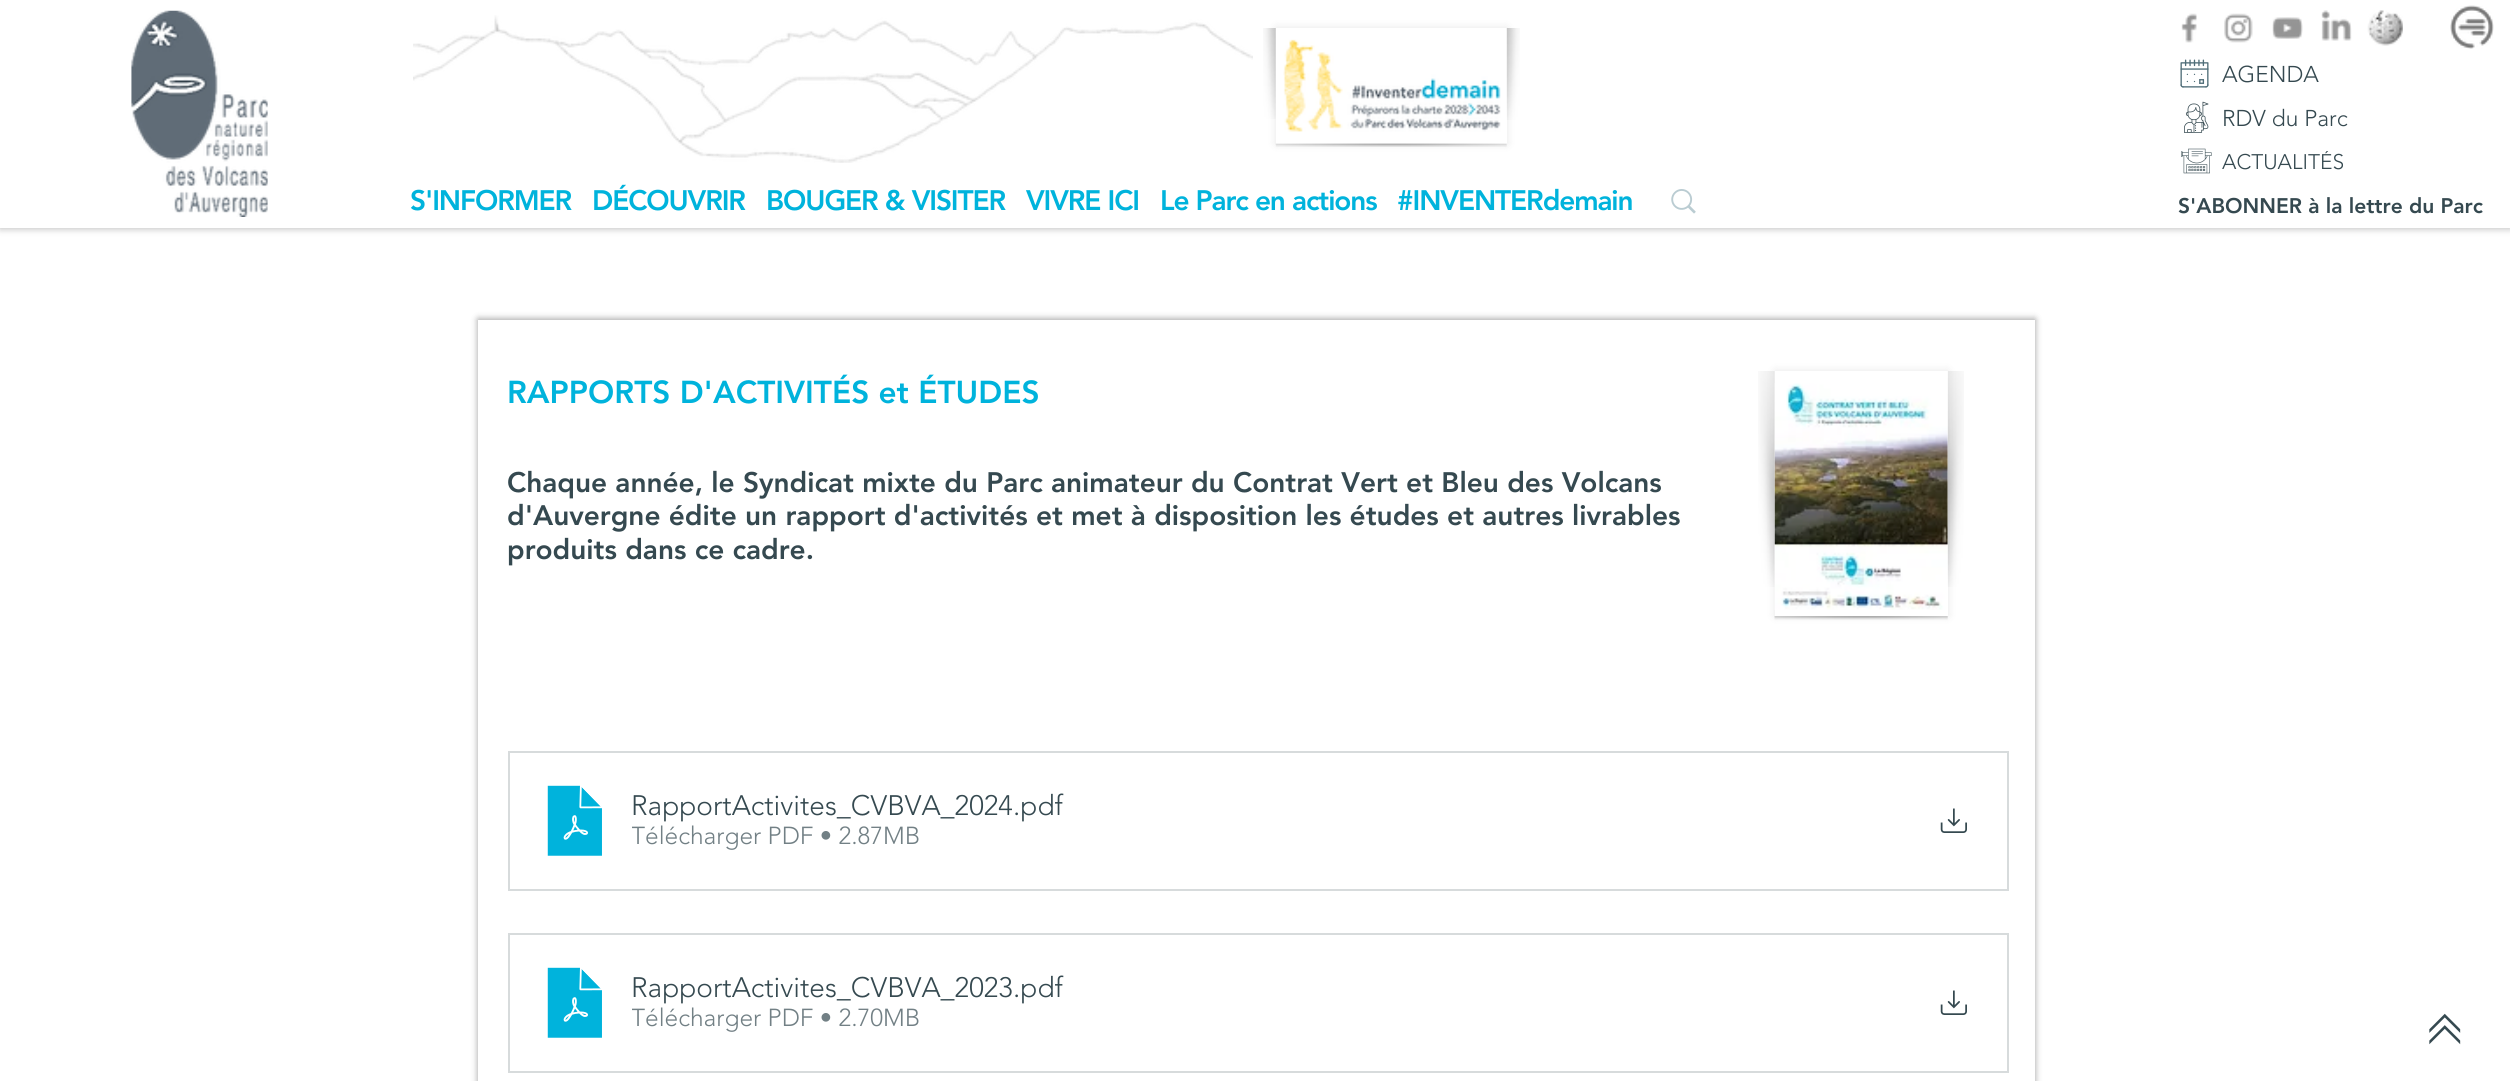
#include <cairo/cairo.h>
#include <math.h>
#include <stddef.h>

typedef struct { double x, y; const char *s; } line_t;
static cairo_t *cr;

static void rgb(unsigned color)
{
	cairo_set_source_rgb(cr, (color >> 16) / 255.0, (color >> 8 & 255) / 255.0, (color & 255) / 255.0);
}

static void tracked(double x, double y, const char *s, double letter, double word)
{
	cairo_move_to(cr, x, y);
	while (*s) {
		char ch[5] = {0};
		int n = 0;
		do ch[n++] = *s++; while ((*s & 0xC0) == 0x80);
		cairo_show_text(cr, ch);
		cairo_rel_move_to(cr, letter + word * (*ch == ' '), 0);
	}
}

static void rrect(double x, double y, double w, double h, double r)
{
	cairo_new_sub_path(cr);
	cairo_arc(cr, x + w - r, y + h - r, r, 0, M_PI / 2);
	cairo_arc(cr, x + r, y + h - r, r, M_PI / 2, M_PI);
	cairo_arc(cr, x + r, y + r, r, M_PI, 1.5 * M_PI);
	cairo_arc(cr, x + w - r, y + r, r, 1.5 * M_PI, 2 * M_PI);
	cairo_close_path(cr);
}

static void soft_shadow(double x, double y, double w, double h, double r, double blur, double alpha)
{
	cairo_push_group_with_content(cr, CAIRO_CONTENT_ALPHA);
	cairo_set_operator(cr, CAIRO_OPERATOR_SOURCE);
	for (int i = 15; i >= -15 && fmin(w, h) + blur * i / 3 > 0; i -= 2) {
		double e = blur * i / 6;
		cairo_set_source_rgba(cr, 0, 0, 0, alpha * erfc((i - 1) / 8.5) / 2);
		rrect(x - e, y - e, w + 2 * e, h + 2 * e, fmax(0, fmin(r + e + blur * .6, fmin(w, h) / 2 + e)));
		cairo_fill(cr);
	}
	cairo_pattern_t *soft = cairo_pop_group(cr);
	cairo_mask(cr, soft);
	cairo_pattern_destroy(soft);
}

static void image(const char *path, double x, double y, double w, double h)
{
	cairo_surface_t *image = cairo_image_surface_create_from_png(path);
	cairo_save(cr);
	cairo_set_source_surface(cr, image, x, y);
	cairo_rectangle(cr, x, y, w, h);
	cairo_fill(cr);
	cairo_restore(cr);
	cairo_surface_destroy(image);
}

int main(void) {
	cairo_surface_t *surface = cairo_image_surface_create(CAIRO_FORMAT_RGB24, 2510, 1081);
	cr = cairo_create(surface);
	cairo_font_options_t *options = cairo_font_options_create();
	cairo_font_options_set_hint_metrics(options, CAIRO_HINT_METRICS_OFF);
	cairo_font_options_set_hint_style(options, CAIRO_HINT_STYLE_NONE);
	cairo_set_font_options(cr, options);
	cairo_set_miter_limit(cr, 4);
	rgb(0xffffff);
	cairo_paint(cr);
	rgb(0x000000);
	soft_shadow(0, 2, 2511, 227, 0, 3.5, 0.25);
	rgb(0xffffff);
	cairo_rectangle(cr, 0, 0, 2510, 228);
	cairo_fill(cr);
	image("img/1.png", 131, 10, 137, 207);
	image("img/2.png", 413, 15, 840, 148);
	cairo_save(cr);
	cairo_set_fill_rule(cr, CAIRO_FILL_RULE_EVEN_ODD);
	cairo_new_path(cr);
	cairo_move_to(cr, 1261, 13);
	cairo_line_to(cr, 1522, 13);
	cairo_line_to(cr, 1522, 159);
	cairo_line_to(cr, 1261, 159);
	cairo_close_path(cr);
	cairo_move_to(cr, 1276, 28);
	cairo_line_to(cr, 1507, 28);
	cairo_line_to(cr, 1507, 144);
	cairo_line_to(cr, 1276, 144);
	cairo_close_path(cr);
	cairo_clip(cr);
	rgb(0x000000);
	soft_shadow(1276, 28, 231, 116, 0, 4.5, 0.1);
	cairo_restore(cr);
	image("img/3.png", 1283, 39, 218, 93);
	image("img/4.png", 1275, 143, 232, 4);
	image("img/5.png", 1263, 28, 13, 91);
	image("img/6.png", 1506, 28, 14, 92);
	image("img/7.png", 1671, 189, 25, 25);
	image("img/8.png", 2181, 13, 16, 30);
	image("img/9.png", 2224, 13, 29, 30);
	image("img/10.png", 2272, 17, 31, 22);
	image("img/11.png", 2321, 10, 31, 31);
	image("img/12.png", 2367, 10, 36, 36);
	image("img/13.png", 2450, 5, 44, 44);
	image("img/14.png", 2180, 59, 29, 29);
	image("img/15.png", 2184, 101, 25, 32);
	image("img/16.png", 2181, 148, 31, 26);
	rgb(0x000000);
	soft_shadow(478, 319, 1557, 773, 0, 3.5, 0.38);
	rgb(0xffffff);
	cairo_rectangle(cr, 478, 320, 1557, 761);
	cairo_fill(cr);
	rgb(0x000000);
	soft_shadow(1775, 371, 173, 245, 0, 4.5, 0.1);
	rgb(0xffffff);
	cairo_rectangle(cr, 1775, 371, 173, 245);
	cairo_fill(cr);
	image("img/17.png", 1774, 383, 174, 227);
	image("img/18.png", 1774, 616, 174, 4);
	image("img/19.png", 1758, 371, 17, 216);
	image("img/20.png", 1947, 371, 17, 216);
	cairo_rectangle(cr, 509, 752, 1499, 138);
	rgb(0xd7dbdc);
	cairo_stroke(cr);
	image("img/21.png", 547, 785, 55, 71);
	image("img/22.png", 1940, 808, 27, 25);
	cairo_rectangle(cr, 509, 934, 1499, 138);
	cairo_stroke(cr);
	image("img/21.png", 547, 967, 55, 71);
	image("img/22.png", 1940, 990, 27, 25);
	image("img/23.png", 2429, 1013, 32, 32);
	cairo_select_font_face(cr, "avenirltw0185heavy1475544 Black", CAIRO_FONT_SLANT_NORMAL, CAIRO_FONT_WEIGHT_NORMAL);
	cairo_set_font_size(cr, 28);
	rgb(0x00b3dc);
	{
		static const line_t items[] = {
			{410, 210, "S'INFORMER"},
			{592, 210, "DÉCOUVRIR"},
			{766, 210, "BOUGER & VISITER"},
			{1026, 210, "VIVRE ICI"},
			{1160, 210, "Le Parc en actions"},
			{1397, 210, "#INVENTERdemain"},
		};
		for (size_t i = 0; i < sizeof items / sizeof *items; i++) {
			tracked(items[i].x, items[i].y, items[i].s, -1.1, 0);
		}
	}
	cairo_select_font_face(cr, "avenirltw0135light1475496 Light", CAIRO_FONT_SLANT_NORMAL, CAIRO_FONT_WEIGHT_NORMAL);
	cairo_set_font_size(cr, 22.75);
	rgb(0x354950);
	cairo_move_to(cr, 2222, 82);
	cairo_show_text(cr, "AGENDA");
	cairo_move_to(cr, 2222, 126);
	cairo_show_text(cr, "RDV du Parc");
	cairo_save(cr);
	cairo_rectangle(cr, 2221, 151, 122, 24);
	cairo_clip(cr);
	cairo_set_font_size(cr, 21);
	cairo_move_to(cr, 2222, 169);
	cairo_show_text(cr, "ACTUALITÉS");
	cairo_restore(cr);
	cairo_select_font_face(cr, "avenirltw0185heavy1475544 Black", CAIRO_FONT_SLANT_NORMAL, CAIRO_FONT_WEIGHT_NORMAL);
	cairo_set_font_size(cr, 21);
	cairo_move_to(cr, 2178, 213);
	cairo_show_text(cr, "S'ABONNER à la lettre du Parc");
	cairo_set_font_size(cr, 31.5);
	rgb(0x00b3dc);
	cairo_move_to(cr, 507, 403);
	cairo_show_text(cr, "RAPPORTS D'ACTIVITÉS et ÉTUDES");
	cairo_set_font_size(cr, 28);
	rgb(0x354950);
	{
		static const line_t items[] = {
			{507, 492, "Chaque année, le Syndicat mixte du Parc animateur du Contrat Vert et Bleu des Volcans"},
			{507, 525, "d'Auvergne édite un rapport d'activités et met à disposition les études et autres livrables"},
			{507, 559, "produits dans ce cadre."},
		};
		for (size_t i = 0; i < sizeof items / sizeof *items; i++) {
			cairo_move_to(cr, items[i].x, items[i].y);
			cairo_show_text(cr, items[i].s);
		}
	}
	cairo_select_font_face(cr, "avenirltw0135light1475496 Light", CAIRO_FONT_SLANT_NORMAL, CAIRO_FONT_WEIGHT_NORMAL);
	cairo_move_to(cr, 631, 815);
	cairo_show_text(cr, "RapportActivites_CVBVA_2024");
	cairo_move_to(cr, 1013, 815);
	cairo_show_text(cr, ".pdf");
	cairo_save(cr);
	cairo_rectangle(cr, 632, 823, 1281, 31);
	cairo_clip(cr);
	cairo_set_font_size(cr, 24.5);
	rgb(0x728085);
	cairo_move_to(cr, 631, 844);
	cairo_show_text(cr, "Télécharger PDF • 2.87MB");
	cairo_restore(cr);
	cairo_move_to(cr, 631, 997);
	cairo_show_text(cr, "RapportActivites_CVBVA_2023");
	cairo_move_to(cr, 1013, 997);
	cairo_show_text(cr, ".pdf");
	cairo_save(cr);
	cairo_rectangle(cr, 632, 1005, 1281, 31);
	cairo_clip(cr);
	cairo_set_font_size(cr, 24.5);
	rgb(0x728085);
	cairo_move_to(cr, 631, 1026);
	cairo_show_text(cr, "Télécharger PDF • 2.70MB");
	cairo_restore(cr);
	cairo_surface_write_to_png(surface, "page.png");
	cairo_font_options_destroy(options);
	cairo_destroy(cr);
	cairo_surface_destroy(surface);
	return 0;
}
